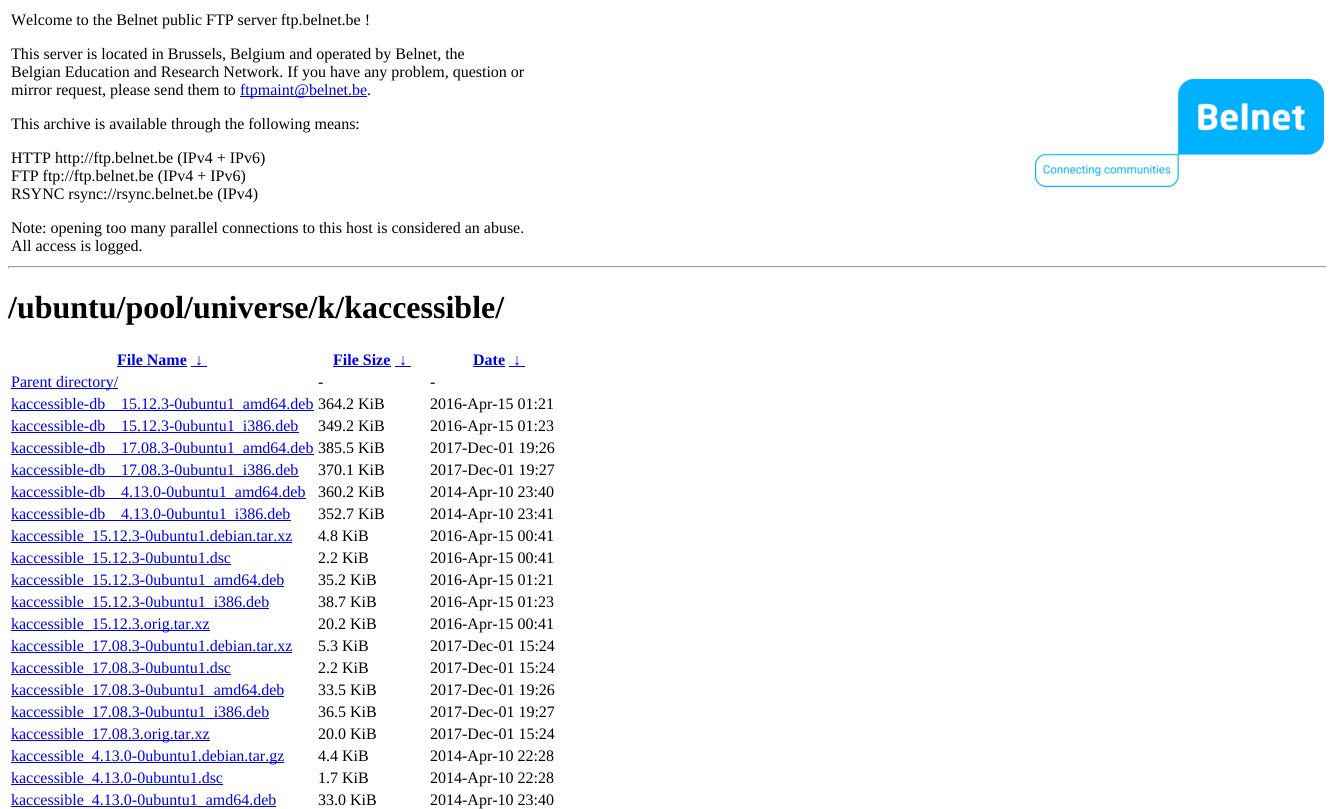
#include <cairo/cairo.h>
#include <math.h>
#include <stddef.h>

typedef struct { double x, y; const char *s; } line_t;
typedef struct { double x, y, w, h; unsigned color; } box_t;
static cairo_t *cr;

static void rgb(unsigned color)
{
	cairo_set_source_rgb(cr, (color >> 16) / 255.0, (color >> 8 & 255) / 255.0, (color & 255) / 255.0);
}

static void image(const char *path, double x, double y, double w, double h)
{
	cairo_surface_t *image = cairo_image_surface_create_from_png(path);
	cairo_save(cr);
	cairo_set_source_surface(cr, image, x, y);
	cairo_rectangle(cr, x, y, w, h);
	cairo_fill(cr);
	cairo_restore(cr);
	cairo_surface_destroy(image);
}

int main(void) {
	cairo_surface_t *surface = cairo_image_surface_create(CAIRO_FORMAT_RGB24, 1335, 809);
	cr = cairo_create(surface);
	cairo_font_options_t *options = cairo_font_options_create();
	cairo_font_options_set_hint_metrics(options, CAIRO_HINT_METRICS_OFF);
	cairo_font_options_set_hint_style(options, CAIRO_HINT_STYLE_NONE);
	cairo_set_font_options(cr, options);
	cairo_set_miter_limit(cr, 4);
	rgb(0xffffff);
	cairo_paint(cr);
	rgb(0x0000ee);
	cairo_rectangle(cr, 240, 96, 127, 1);
	cairo_fill(cr);
	image("img/1.png", 1035, 79, 289, 108);
	{
		static const box_t items[] = {
			{8, 266, 1319, 1, 0x9f9f9f},
			{1326, 266, 1, 2, 0xeeeeee},
			{8, 267, 1319, 1, 0xeeeeee},
			{8, 266, 1, 2, 0x9f9f9f},
			{117, 366, 70, 1, 0x0000ee},
			{191, 366, 16, 1, 0x0000ee},
			{333, 366, 58, 1, 0x0000ee},
			{395, 366, 16, 1, 0x0000ee},
			{473, 366, 32, 1, 0x0000ee},
			{509, 366, 16, 1, 0x0000ee},
			{11, 388, 107, 1, 0x0000ee},
			{11, 410, 303, 1, 0x0000ee},
			{11, 432, 288, 1, 0x0000ee},
			{11, 454, 303, 1, 0x0000ee},
			{11, 476, 288, 1, 0x0000ee},
			{11, 498, 295, 1, 0x0000ee},
			{11, 520, 280, 1, 0x0000ee},
			{11, 542, 281, 1, 0x0000ee},
			{11, 564, 220, 1, 0x0000ee},
			{11, 586, 273, 1, 0x0000ee},
			{11, 608, 258, 1, 0x0000ee},
			{11, 630, 199, 1, 0x0000ee},
			{11, 652, 281, 1, 0x0000ee},
			{11, 674, 220, 1, 0x0000ee},
			{11, 696, 273, 1, 0x0000ee},
			{11, 718, 258, 1, 0x0000ee},
			{11, 740, 199, 1, 0x0000ee},
			{11, 762, 273, 1, 0x0000ee},
			{11, 784, 212, 1, 0x0000ee},
			{11, 806, 265, 1, 0x0000ee},
		};
		for (size_t i = 0; i < sizeof items / sizeof *items; i++) {
			rgb(items[i].color);
			cairo_rectangle(cr, items[i].x, items[i].y, items[i].w, items[i].h);
			cairo_fill(cr);
		}
	}
	cairo_select_font_face(cr, "Liberation Serif", CAIRO_FONT_SLANT_NORMAL, CAIRO_FONT_WEIGHT_NORMAL);
	cairo_set_font_size(cr, 16);
	rgb(0x000000);
	{
		static const line_t items[] = {
			{11, 25, "Welcome to the Belnet public FTP server ftp.belnet.be !"},
			{11, 59, "This server is located in Brussels, Belgium and operated by Belnet, the"},
			{11, 77, "Belgian Education and Research Network. If you have any problem, question or"},
			{11, 95, "mirror request, please send them to"},
		};
		for (size_t i = 0; i < sizeof items / sizeof *items; i++) {
			cairo_move_to(cr, items[i].x, items[i].y);
			cairo_show_text(cr, items[i].s);
		}
	}
	rgb(0x0000ee);
	cairo_move_to(cr, 240, 95);
	cairo_show_text(cr, "ftpmaint@belnet.be");
	rgb(0x000000);
	{
		static const line_t items[] = {
			{367, 95, "."},
			{11, 129, "This archive is available through the following means:"},
			{11, 163, "HTTP http://ftp.belnet.be (IPv4 + IPv6)"},
			{11, 181, "FTP ftp://ftp.belnet.be (IPv4 + IPv6)"},
			{11, 199, "RSYNC rsync://rsync.belnet.be (IPv4)"},
			{11, 233, "Note: opening too many parallel connections to this host is considered an abuse."},
			{11, 251, "All access is logged."},
		};
		for (size_t i = 0; i < sizeof items / sizeof *items; i++) {
			cairo_move_to(cr, items[i].x, items[i].y);
			cairo_show_text(cr, items[i].s);
		}
	}
	cairo_select_font_face(cr, "Liberation Serif", CAIRO_FONT_SLANT_NORMAL, CAIRO_FONT_WEIGHT_BOLD);
	cairo_set_font_size(cr, 32);
	cairo_move_to(cr, 8, 318);
	cairo_show_text(cr, "/ubuntu/pool/universe/k/kaccessible/");
	cairo_set_font_size(cr, 16);
	rgb(0x0000ee);
	{
		static const line_t items[] = {
			{117, 365, "File Name"},
			{195, 365, "↓"},
			{333, 365, "File Size"},
			{399, 365, "↓"},
			{473, 365, "Date"},
			{513, 365, "↓"},
		};
		for (size_t i = 0; i < sizeof items / sizeof *items; i++) {
			cairo_move_to(cr, items[i].x, items[i].y);
			cairo_show_text(cr, items[i].s);
		}
	}
	cairo_select_font_face(cr, "Liberation Serif", CAIRO_FONT_SLANT_NORMAL, CAIRO_FONT_WEIGHT_NORMAL);
	cairo_move_to(cr, 11, 387);
	cairo_show_text(cr, "Parent directory/");
	rgb(0x000000);
	cairo_move_to(cr, 318, 387);
	cairo_show_text(cr, "-");
	cairo_move_to(cr, 430, 387);
	cairo_show_text(cr, "-");
	rgb(0x0000ee);
	cairo_move_to(cr, 11, 409);
	cairo_show_text(cr, "kaccessible-db");
	cairo_move_to(cr, 121, 409);
	cairo_show_text(cr, "15.12.3-0ubuntu1_amd64.deb");
	rgb(0x000000);
	cairo_move_to(cr, 318, 409);
	cairo_show_text(cr, "364.2 KiB");
	cairo_move_to(cr, 430, 409);
	cairo_show_text(cr, "2016-Apr-15 01:21");
	rgb(0x0000ee);
	cairo_move_to(cr, 11, 431);
	cairo_show_text(cr, "kaccessible-db");
	cairo_move_to(cr, 121, 431);
	cairo_show_text(cr, "15.12.3-0ubuntu1_i386.deb");
	rgb(0x000000);
	cairo_move_to(cr, 318, 431);
	cairo_show_text(cr, "349.2 KiB");
	cairo_move_to(cr, 430, 431);
	cairo_show_text(cr, "2016-Apr-15 01:23");
	rgb(0x0000ee);
	cairo_move_to(cr, 11, 453);
	cairo_show_text(cr, "kaccessible-db");
	cairo_move_to(cr, 121, 453);
	cairo_show_text(cr, "17.08.3-0ubuntu1_amd64.deb");
	rgb(0x000000);
	cairo_move_to(cr, 318, 453);
	cairo_show_text(cr, "385.5 KiB");
	cairo_move_to(cr, 430, 453);
	cairo_show_text(cr, "2017-Dec-01 19:26");
	rgb(0x0000ee);
	cairo_move_to(cr, 11, 475);
	cairo_show_text(cr, "kaccessible-db");
	cairo_move_to(cr, 121, 475);
	cairo_show_text(cr, "17.08.3-0ubuntu1_i386.deb");
	rgb(0x000000);
	cairo_move_to(cr, 318, 475);
	cairo_show_text(cr, "370.1 KiB");
	cairo_move_to(cr, 430, 475);
	cairo_show_text(cr, "2017-Dec-01 19:27");
	rgb(0x0000ee);
	cairo_move_to(cr, 11, 497);
	cairo_show_text(cr, "kaccessible-db");
	cairo_move_to(cr, 121, 497);
	cairo_show_text(cr, "4.13.0-0ubuntu1_amd64.deb");
	rgb(0x000000);
	cairo_move_to(cr, 318, 497);
	cairo_show_text(cr, "360.2 KiB");
	cairo_move_to(cr, 430, 497);
	cairo_show_text(cr, "2014-Apr-10 23:40");
	rgb(0x0000ee);
	cairo_move_to(cr, 11, 519);
	cairo_show_text(cr, "kaccessible-db");
	cairo_move_to(cr, 121, 519);
	cairo_show_text(cr, "4.13.0-0ubuntu1_i386.deb");
	rgb(0x000000);
	cairo_move_to(cr, 318, 519);
	cairo_show_text(cr, "352.7 KiB");
	cairo_move_to(cr, 430, 519);
	cairo_show_text(cr, "2014-Apr-10 23:41");
	rgb(0x0000ee);
	cairo_move_to(cr, 11, 541);
	cairo_show_text(cr, "kaccessible_15.12.3-0ubuntu1.debian.tar.xz");
	rgb(0x000000);
	cairo_move_to(cr, 318, 541);
	cairo_show_text(cr, "4.8 KiB");
	cairo_move_to(cr, 430, 541);
	cairo_show_text(cr, "2016-Apr-15 00:41");
	rgb(0x0000ee);
	cairo_move_to(cr, 11, 563);
	cairo_show_text(cr, "kaccessible_15.12.3-0ubuntu1.dsc");
	rgb(0x000000);
	cairo_move_to(cr, 318, 563);
	cairo_show_text(cr, "2.2 KiB");
	cairo_move_to(cr, 430, 563);
	cairo_show_text(cr, "2016-Apr-15 00:41");
	rgb(0x0000ee);
	cairo_move_to(cr, 11, 585);
	cairo_show_text(cr, "kaccessible_15.12.3-0ubuntu1_amd64.deb");
	rgb(0x000000);
	cairo_move_to(cr, 318, 585);
	cairo_show_text(cr, "35.2 KiB");
	cairo_move_to(cr, 430, 585);
	cairo_show_text(cr, "2016-Apr-15 01:21");
	rgb(0x0000ee);
	cairo_move_to(cr, 11, 607);
	cairo_show_text(cr, "kaccessible_15.12.3-0ubuntu1_i386.deb");
	rgb(0x000000);
	cairo_move_to(cr, 318, 607);
	cairo_show_text(cr, "38.7 KiB");
	cairo_move_to(cr, 430, 607);
	cairo_show_text(cr, "2016-Apr-15 01:23");
	rgb(0x0000ee);
	cairo_move_to(cr, 11, 629);
	cairo_show_text(cr, "kaccessible_15.12.3.orig.tar.xz");
	rgb(0x000000);
	cairo_move_to(cr, 318, 629);
	cairo_show_text(cr, "20.2 KiB");
	cairo_move_to(cr, 430, 629);
	cairo_show_text(cr, "2016-Apr-15 00:41");
	rgb(0x0000ee);
	cairo_move_to(cr, 11, 651);
	cairo_show_text(cr, "kaccessible_17.08.3-0ubuntu1.debian.tar.xz");
	rgb(0x000000);
	cairo_move_to(cr, 318, 651);
	cairo_show_text(cr, "5.3 KiB");
	cairo_move_to(cr, 430, 651);
	cairo_show_text(cr, "2017-Dec-01 15:24");
	rgb(0x0000ee);
	cairo_move_to(cr, 11, 673);
	cairo_show_text(cr, "kaccessible_17.08.3-0ubuntu1.dsc");
	rgb(0x000000);
	cairo_move_to(cr, 318, 673);
	cairo_show_text(cr, "2.2 KiB");
	cairo_move_to(cr, 430, 673);
	cairo_show_text(cr, "2017-Dec-01 15:24");
	rgb(0x0000ee);
	cairo_move_to(cr, 11, 695);
	cairo_show_text(cr, "kaccessible_17.08.3-0ubuntu1_amd64.deb");
	rgb(0x000000);
	cairo_move_to(cr, 318, 695);
	cairo_show_text(cr, "33.5 KiB");
	cairo_move_to(cr, 430, 695);
	cairo_show_text(cr, "2017-Dec-01 19:26");
	rgb(0x0000ee);
	cairo_move_to(cr, 11, 717);
	cairo_show_text(cr, "kaccessible_17.08.3-0ubuntu1_i386.deb");
	rgb(0x000000);
	cairo_move_to(cr, 318, 717);
	cairo_show_text(cr, "36.5 KiB");
	cairo_move_to(cr, 430, 717);
	cairo_show_text(cr, "2017-Dec-01 19:27");
	rgb(0x0000ee);
	cairo_move_to(cr, 11, 739);
	cairo_show_text(cr, "kaccessible_17.08.3.orig.tar.xz");
	rgb(0x000000);
	cairo_move_to(cr, 318, 739);
	cairo_show_text(cr, "20.0 KiB");
	cairo_move_to(cr, 430, 739);
	cairo_show_text(cr, "2017-Dec-01 15:24");
	rgb(0x0000ee);
	cairo_move_to(cr, 11, 761);
	cairo_show_text(cr, "kaccessible_4.13.0-0ubuntu1.debian.tar.gz");
	rgb(0x000000);
	cairo_move_to(cr, 318, 761);
	cairo_show_text(cr, "4.4 KiB");
	cairo_move_to(cr, 430, 761);
	cairo_show_text(cr, "2014-Apr-10 22:28");
	rgb(0x0000ee);
	cairo_move_to(cr, 11, 783);
	cairo_show_text(cr, "kaccessible_4.13.0-0ubuntu1.dsc");
	rgb(0x000000);
	cairo_move_to(cr, 318, 783);
	cairo_show_text(cr, "1.7 KiB");
	cairo_move_to(cr, 430, 783);
	cairo_show_text(cr, "2014-Apr-10 22:28");
	rgb(0x0000ee);
	cairo_move_to(cr, 11, 805);
	cairo_show_text(cr, "kaccessible_4.13.0-0ubuntu1_amd64.deb");
	rgb(0x000000);
	cairo_move_to(cr, 318, 805);
	cairo_show_text(cr, "33.0 KiB");
	cairo_move_to(cr, 430, 805);
	cairo_show_text(cr, "2014-Apr-10 23:40");
	cairo_surface_write_to_png(surface, "page.png");
	cairo_font_options_destroy(options);
	cairo_destroy(cr);
	cairo_surface_destroy(surface);
	return 0;
}
